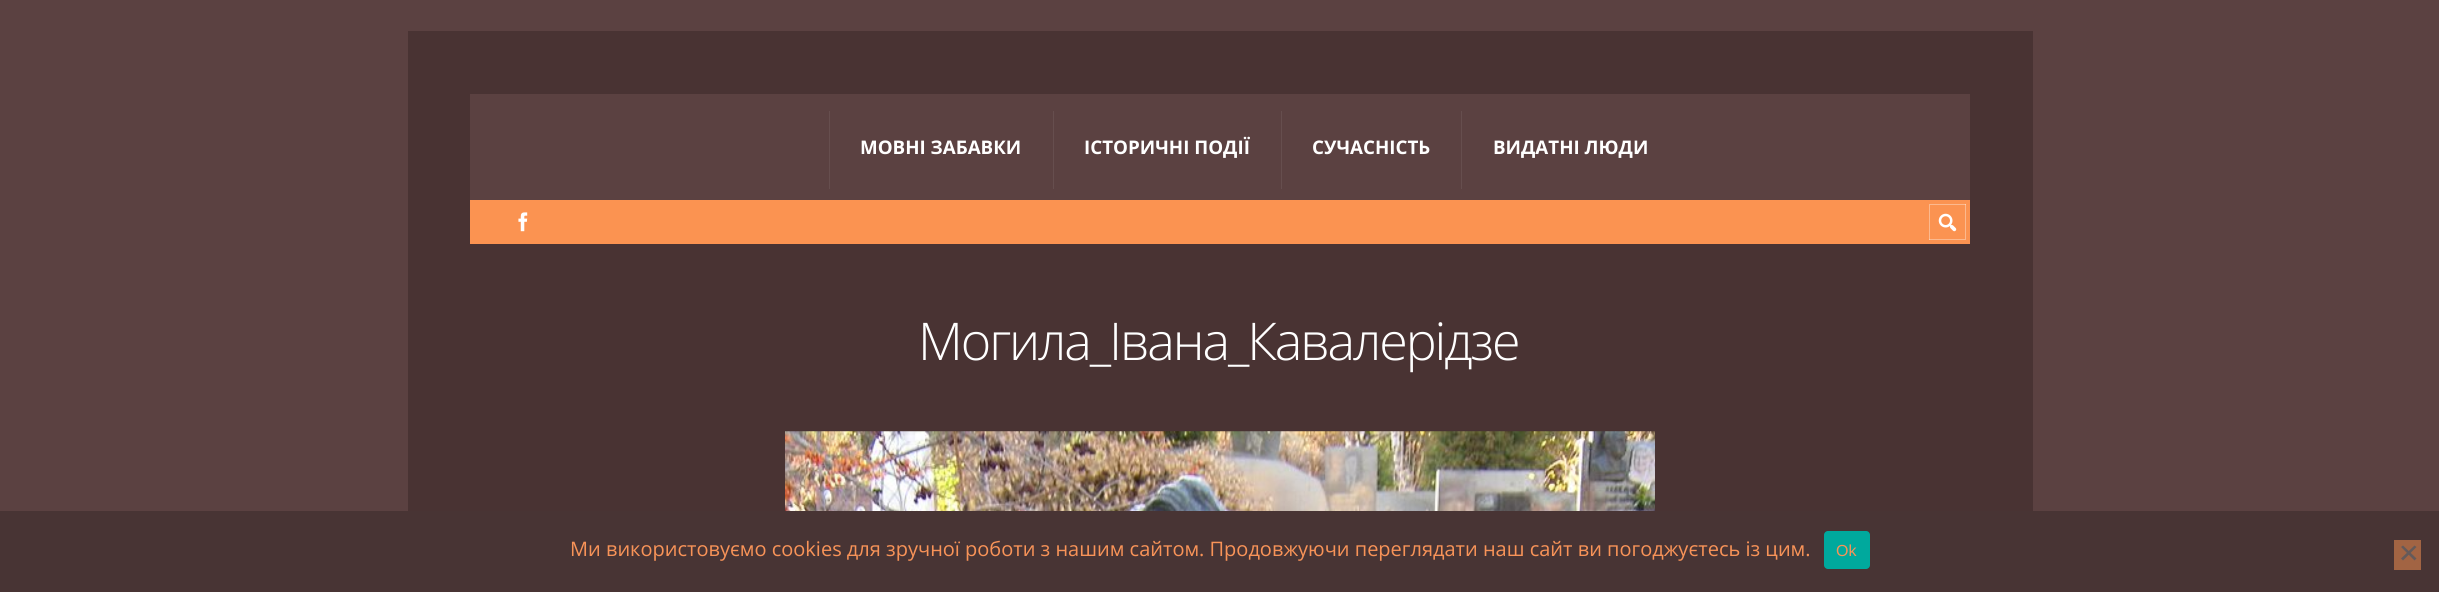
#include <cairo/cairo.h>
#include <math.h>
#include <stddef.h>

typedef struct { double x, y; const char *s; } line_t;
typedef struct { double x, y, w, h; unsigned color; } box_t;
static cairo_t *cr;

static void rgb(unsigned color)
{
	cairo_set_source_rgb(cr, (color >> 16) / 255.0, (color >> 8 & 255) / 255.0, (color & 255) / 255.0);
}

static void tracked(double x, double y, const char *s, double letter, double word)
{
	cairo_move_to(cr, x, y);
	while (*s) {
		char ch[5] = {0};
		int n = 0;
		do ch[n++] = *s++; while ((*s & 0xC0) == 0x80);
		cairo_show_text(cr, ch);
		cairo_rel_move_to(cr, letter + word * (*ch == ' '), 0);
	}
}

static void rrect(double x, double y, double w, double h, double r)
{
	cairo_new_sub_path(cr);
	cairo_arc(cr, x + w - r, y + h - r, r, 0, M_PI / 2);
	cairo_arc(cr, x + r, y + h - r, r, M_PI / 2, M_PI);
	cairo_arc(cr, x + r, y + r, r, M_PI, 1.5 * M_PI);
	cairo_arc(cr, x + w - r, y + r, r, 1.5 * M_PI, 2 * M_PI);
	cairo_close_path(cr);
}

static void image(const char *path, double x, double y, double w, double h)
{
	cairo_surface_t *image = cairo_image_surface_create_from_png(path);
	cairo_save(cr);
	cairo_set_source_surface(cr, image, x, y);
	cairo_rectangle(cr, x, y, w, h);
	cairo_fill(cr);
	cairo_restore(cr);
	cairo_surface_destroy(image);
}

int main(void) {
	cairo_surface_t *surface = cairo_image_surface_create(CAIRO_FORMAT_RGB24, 2439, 592);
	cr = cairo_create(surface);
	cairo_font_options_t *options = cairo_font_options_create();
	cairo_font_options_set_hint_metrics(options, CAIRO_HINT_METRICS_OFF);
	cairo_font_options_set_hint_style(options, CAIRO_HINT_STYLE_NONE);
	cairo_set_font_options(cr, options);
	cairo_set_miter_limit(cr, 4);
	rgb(0x5b4141);
	cairo_paint(cr);
	{
		static const box_t items[] = {
			{408, 31, 1625, 480, 0x493333},
			{470, 94, 1500, 106, 0x5b4141},
			{829, 111, 1, 78, 0x664e4e},
			{1053, 111, 1, 78, 0x664e4e},
			{1281, 111, 1, 78, 0x664e4e},
			{1461, 111, 1, 78, 0x664e4e},
			{470, 200, 1500, 44, 0xfb9351},
		};
		for (size_t i = 0; i < sizeof items / sizeof *items; i++) {
			rgb(items[i].color);
			cairo_rectangle(cr, items[i].x, items[i].y, items[i].w, items[i].h);
			cairo_fill(cr);
		}
	}
	image("img/1.png", 518, 212, 10, 20);
	cairo_save(cr);
	cairo_rectangle(cr, 1929, 204, 37, 36);
	cairo_clip(cr);
	rgb(0xfcb98e);
	cairo_set_fill_rule(cr, CAIRO_FILL_RULE_EVEN_ODD);
	cairo_new_path(cr);
	cairo_move_to(cr, 1805, 80);
	cairo_line_to(cr, 2090, 80);
	cairo_line_to(cr, 2090, 364);
	cairo_line_to(cr, 1805, 364);
	cairo_close_path(cr);
	cairo_move_to(cr, 1928, 202);
	cairo_line_to(cr, 1965, 202);
	cairo_line_to(cr, 1965, 239);
	cairo_line_to(cr, 1928, 239);
	cairo_close_path(cr);
	cairo_fill(cr);
	cairo_set_source_rgba(cr, 1, 1, 1, 0.35);
	cairo_new_path(cr);
	cairo_move_to(cr, 1805, 80);
	cairo_line_to(cr, 2090, 80);
	cairo_line_to(cr, 2090, 364);
	cairo_line_to(cr, 1805, 364);
	cairo_close_path(cr);
	cairo_move_to(cr, 1930, 205);
	cairo_line_to(cr, 1968, 205);
	cairo_line_to(cr, 1968, 241);
	cairo_line_to(cr, 1930, 241);
	cairo_close_path(cr);
	cairo_fill(cr);
	cairo_restore(cr);
	image("img/2.png", 1938, 213, 19, 19);
	image("img/3.png", 785, 431, 870, 80);
	rgb(0x483434);
	cairo_rectangle(cr, 0, 511, 2439, 81);
	cairo_fill(cr);
	rgb(0x00a99d);
	rrect(1824, 531, 46, 38, 4);
	cairo_fill(cr);
	rgb(0xa26443);
	cairo_rectangle(cr, 2394, 540, 27, 30);
	cairo_fill(cr);
	rgb(0x645a5a);
	cairo_new_path(cr);
	cairo_move_to(cr, 2414.5, 545.5);
	cairo_line_to(cr, 2416.5, 547);
	cairo_line_to(cr, 2403, 560.5);
	cairo_line_to(cr, 2401, 558.5);
	cairo_close_path(cr);
	cairo_fill(cr);
	cairo_new_path(cr);
	cairo_move_to(cr, 2401, 547);
	cairo_line_to(cr, 2403, 545.5);
	cairo_line_to(cr, 2416.5, 558.5);
	cairo_line_to(cr, 2414.5, 560.5);
	cairo_close_path(cr);
	cairo_fill(cr);
	cairo_select_font_face(cr, "Open Sans", CAIRO_FONT_SLANT_NORMAL, CAIRO_FONT_WEIGHT_BOLD);
	cairo_set_font_size(cr, 18.75);
	rgb(0xffffff);
	{
		static const line_t items[] = {
			{860, 154, "МОВНІ ЗАБАВКИ"},
			{1084, 154, "ІСТОРИЧНІ ПОДІЇ"},
			{1312, 154, "СУЧАСНІСТЬ"},
			{1493, 154, "ВИДАТНІ ЛЮДИ"},
		};
		for (size_t i = 0; i < sizeof items / sizeof *items; i++) {
			cairo_move_to(cr, items[i].x, items[i].y);
			cairo_show_text(cr, items[i].s);
		}
	}
	cairo_select_font_face(cr, "Open Sans Light", CAIRO_FONT_SLANT_NORMAL, CAIRO_FONT_WEIGHT_NORMAL);
	cairo_set_font_size(cr, 52);
	tracked(918, 360, "Могила_Івана_Кавалерідзе", -2.1, 0);
	cairo_select_font_face(cr, "Open Sans", CAIRO_FONT_SLANT_NORMAL, CAIRO_FONT_WEIGHT_NORMAL);
	cairo_set_font_size(cr, 20);
	rgb(0xf89358);
	cairo_move_to(cr, 570, 556);
	cairo_show_text(cr, "Ми використовуємо cookies для зручної роботи з нашим сайтом. Продовжуючи переглядати наш сайт ви погоджуєтесь із цим.");
	cairo_select_font_face(cr, "Liberation Sans", CAIRO_FONT_SLANT_NORMAL, CAIRO_FONT_WEIGHT_NORMAL);
	cairo_set_font_size(cr, 16);
	cairo_move_to(cr, 1836, 556);
	cairo_show_text(cr, "Ok");
	cairo_surface_write_to_png(surface, "page.png");
	cairo_font_options_destroy(options);
	cairo_destroy(cr);
	cairo_surface_destroy(surface);
	return 0;
}
